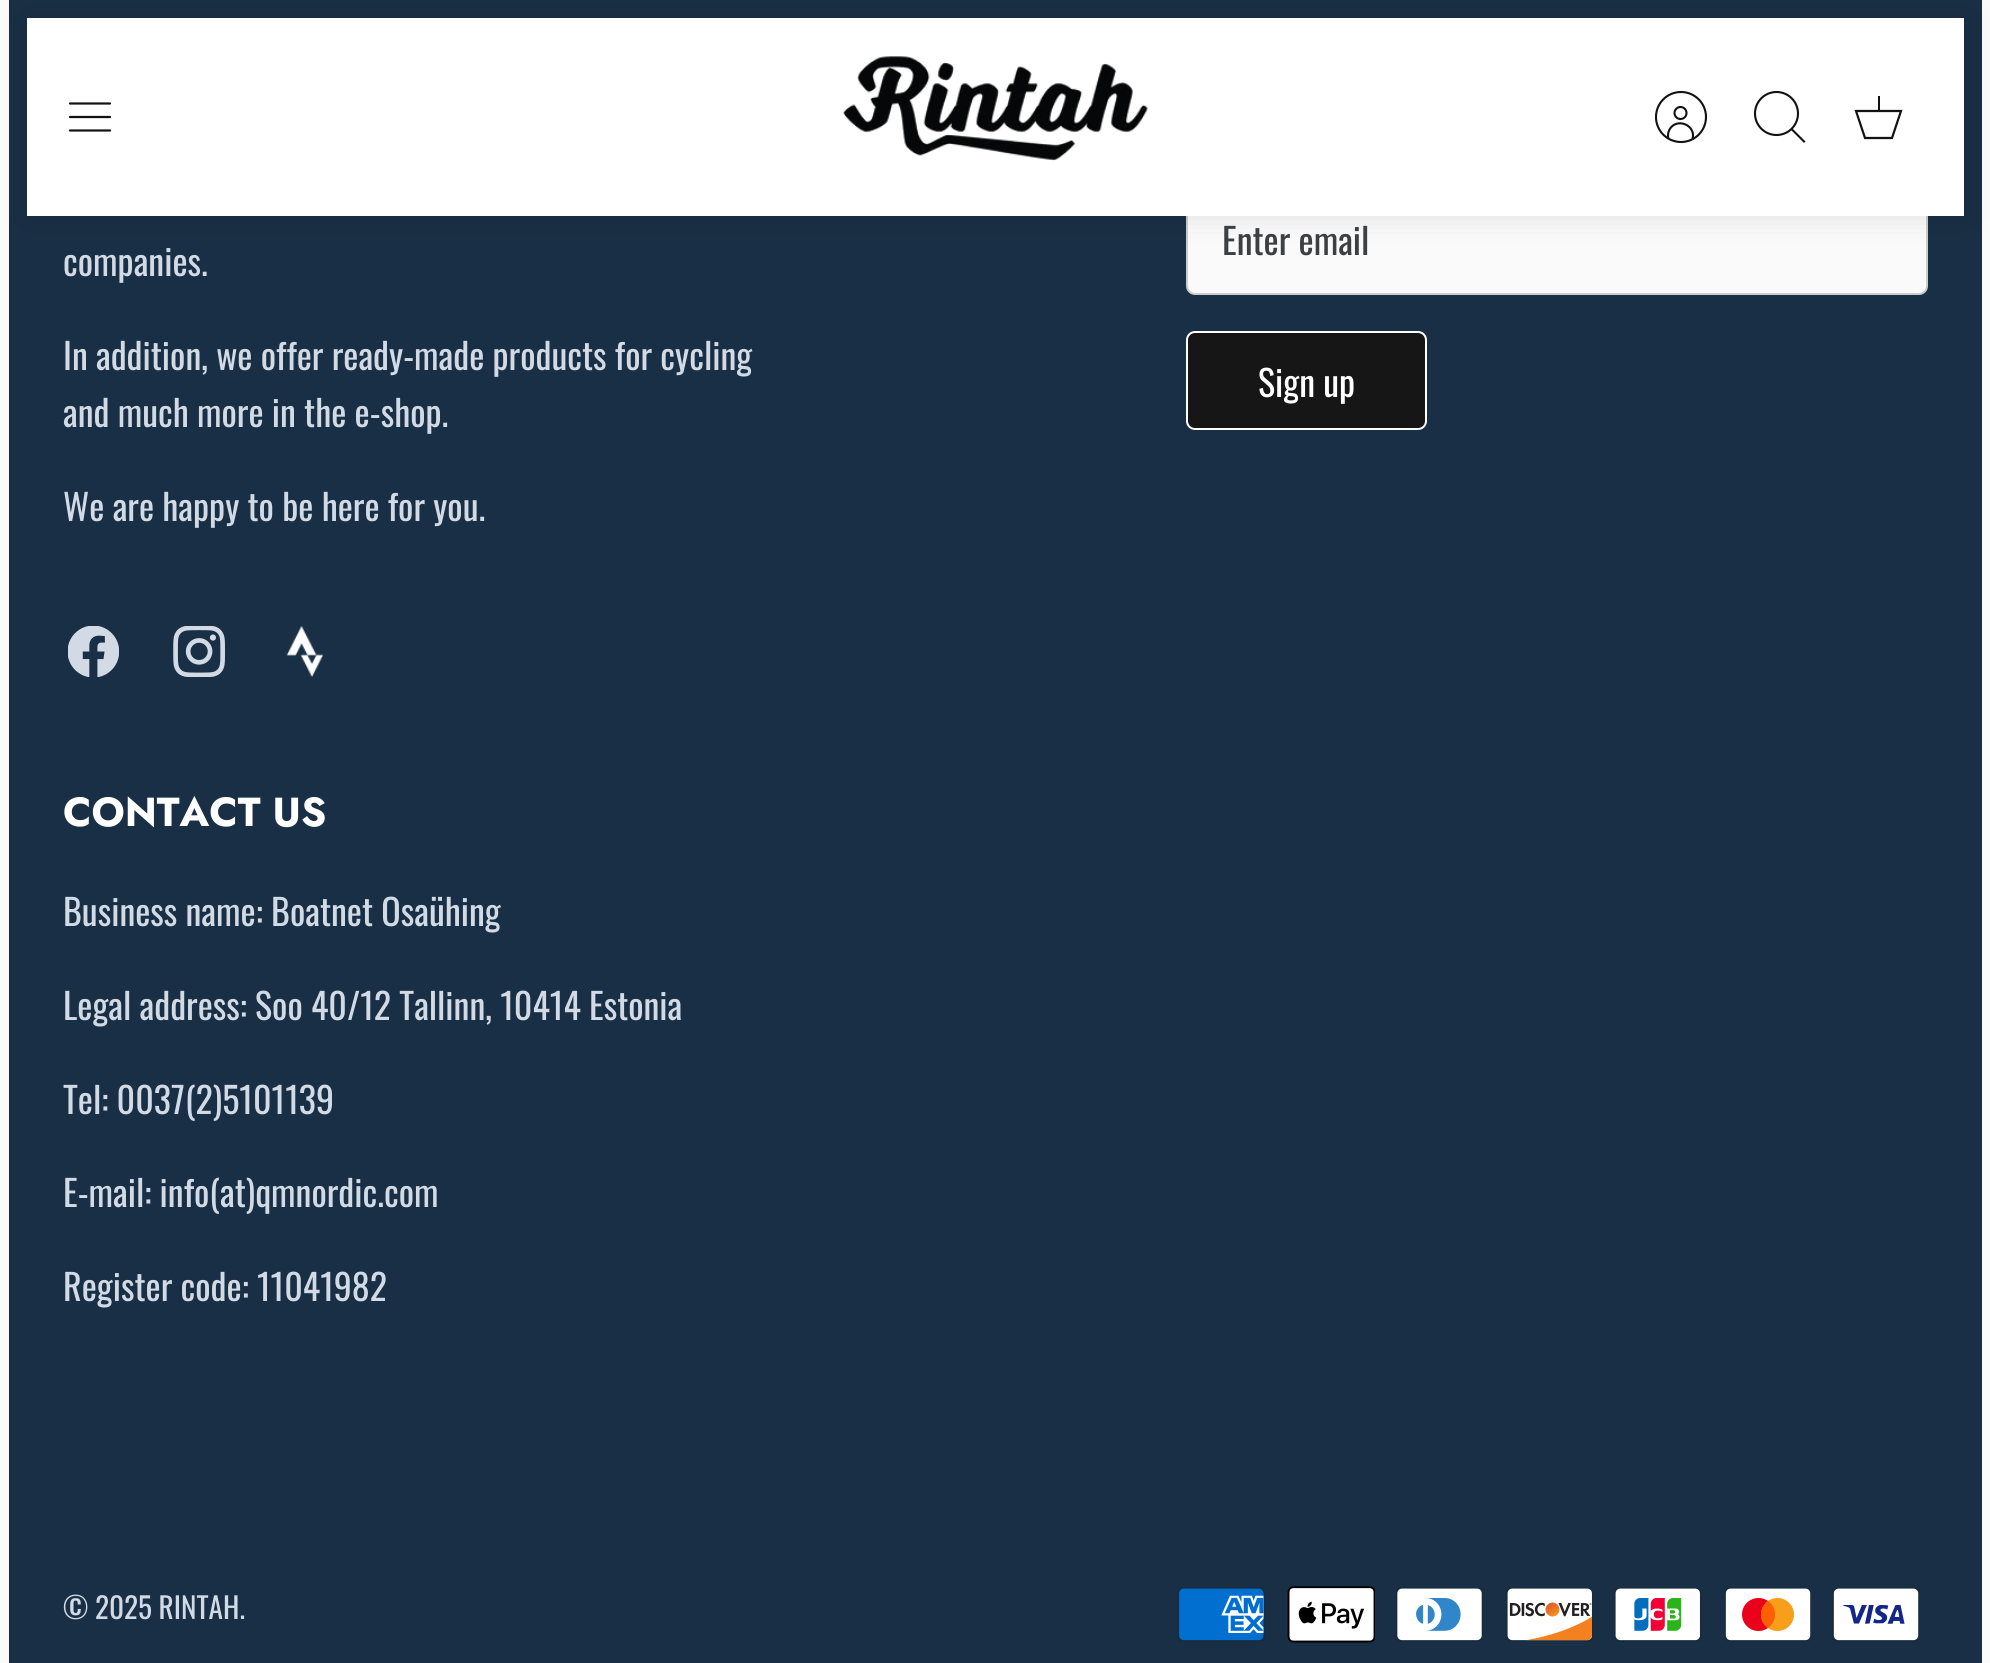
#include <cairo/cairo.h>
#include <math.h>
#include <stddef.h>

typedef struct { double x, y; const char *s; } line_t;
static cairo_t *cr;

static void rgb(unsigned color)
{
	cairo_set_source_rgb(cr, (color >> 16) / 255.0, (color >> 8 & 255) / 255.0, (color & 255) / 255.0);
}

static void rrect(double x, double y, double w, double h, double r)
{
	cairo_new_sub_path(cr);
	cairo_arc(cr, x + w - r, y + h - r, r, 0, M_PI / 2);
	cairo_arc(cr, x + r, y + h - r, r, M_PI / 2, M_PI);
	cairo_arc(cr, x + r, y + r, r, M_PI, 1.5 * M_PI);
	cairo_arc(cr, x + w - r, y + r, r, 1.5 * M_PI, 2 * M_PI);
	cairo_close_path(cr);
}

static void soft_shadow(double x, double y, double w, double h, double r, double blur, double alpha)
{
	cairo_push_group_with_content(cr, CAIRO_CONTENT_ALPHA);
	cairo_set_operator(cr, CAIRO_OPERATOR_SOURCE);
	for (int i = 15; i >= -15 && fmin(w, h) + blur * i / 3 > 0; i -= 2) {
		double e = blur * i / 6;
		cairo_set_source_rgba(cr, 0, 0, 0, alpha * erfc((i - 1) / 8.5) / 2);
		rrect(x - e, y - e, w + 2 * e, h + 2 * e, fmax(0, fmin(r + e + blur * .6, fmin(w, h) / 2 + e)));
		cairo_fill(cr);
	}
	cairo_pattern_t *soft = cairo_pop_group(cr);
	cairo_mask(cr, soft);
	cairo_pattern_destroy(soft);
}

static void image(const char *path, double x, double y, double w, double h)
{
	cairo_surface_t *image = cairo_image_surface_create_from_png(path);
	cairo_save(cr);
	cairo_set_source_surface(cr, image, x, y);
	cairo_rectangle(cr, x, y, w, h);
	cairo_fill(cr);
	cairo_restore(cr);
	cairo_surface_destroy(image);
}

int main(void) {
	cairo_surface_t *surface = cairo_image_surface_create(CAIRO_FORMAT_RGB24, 1990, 1663);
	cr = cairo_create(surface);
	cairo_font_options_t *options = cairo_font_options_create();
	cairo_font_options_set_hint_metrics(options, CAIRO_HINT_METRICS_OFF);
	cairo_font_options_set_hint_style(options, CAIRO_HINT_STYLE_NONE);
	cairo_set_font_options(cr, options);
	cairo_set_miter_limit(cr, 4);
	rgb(0xfafafa);
	cairo_paint(cr);
	rgb(0x192f45);
	cairo_rectangle(cr, 9, 0, 1973, 1663);
	cairo_fill(cr);
	rgb(0xfafafa);
	rrect(1187, 188, 740, 106, 8);
	cairo_fill_preserve(cr);
	rgb(0xcbcccc);
	cairo_stroke(cr);
	rgb(0x000000);
	soft_shadow(29, 20, 1938, 198, 0, 13.5, 0.1);
	rgb(0xffffff);
	cairo_rectangle(cr, 27, 18, 1937, 198);
	cairo_fill(cr);
	cairo_new_path(cr);
	cairo_move_to(cr, 70, 117);
	cairo_line_to(cr, 110, 117);
	cairo_move_to(cr, 70, 103.5);
	cairo_line_to(cr, 110, 103.5);
	cairo_move_to(cr, 70, 130.5);
	cairo_line_to(cr, 110, 130.5);
	rgb(0x121212);
	cairo_set_line_width(cr, 2.2);
	cairo_set_line_cap(cr, CAIRO_LINE_CAP_ROUND);
	cairo_set_line_join(cr, CAIRO_LINE_JOIN_ROUND);
	cairo_stroke(cr);
	image("img/1.png", 843, 56, 305, 105);
	cairo_new_path(cr);
	cairo_move_to(cr, 1692.5, 139);
	cairo_curve_to(cr, 1696.5, 125, 1676.5, 117, 1669.5, 129.5);
	cairo_curve_to(cr, 1668, 132.5, 1667.5, 135.5, 1668.5, 139);
	cairo_set_line_width(cr, 2.1);
	cairo_set_line_cap(cr, CAIRO_LINE_CAP_BUTT);
	cairo_set_line_join(cr, CAIRO_LINE_JOIN_MITER);
	cairo_stroke(cr);
	cairo_arc(cr, 1680.5, 113, 6, 0, 2 * M_PI);
	cairo_stroke(cr);
	cairo_arc(cr, 1681, 117, 25, 0, 2 * M_PI);
	cairo_stroke(cr);
	cairo_arc(cr, 1776.5, 113.5, 21.5, 0, 2 * M_PI);
	cairo_stroke(cr);
	cairo_new_path(cr);
	cairo_move_to(cr, 1792, 129.5);
	cairo_line_to(cr, 1804, 141.5);
	cairo_set_line_cap(cr, CAIRO_LINE_CAP_SQUARE);
	cairo_stroke(cr);
	cairo_new_path(cr);
	cairo_move_to(cr, 1856, 111);
	cairo_line_to(cr, 1901, 111);
	cairo_line_to(cr, 1892, 138);
	cairo_line_to(cr, 1865, 138);
	cairo_close_path(cr);
	cairo_set_line_width(cr, 2.2);
	cairo_set_line_cap(cr, CAIRO_LINE_CAP_BUTT);
	cairo_stroke(cr);
	cairo_rectangle(cr, 1878, 96, 2, 15);
	cairo_fill(cr);
	image("img/2.png", 68, 626, 51, 51);
	image("img/3.png", 173, 626, 52, 51);
	image("img/4.png", 286, 625, 37, 52);
	rgb(0x161616);
	rrect(1187, 332, 239, 97, 8);
	cairo_fill_preserve(cr);
	rgb(0xffffff);
	cairo_set_line_width(cr, 2);
	cairo_stroke(cr);
	image("img/5.png", 1177, 1587, 88, 55);
	image("img/6.png", 1287, 1586, 88, 57);
	image("img/7.png", 1395, 1587, 89, 55);
	image("img/8.png", 1506, 1587, 87, 55);
	image("img/9.png", 1614, 1587, 88, 55);
	image("img/10.png", 1724, 1587, 87, 55);
	image("img/11.png", 1832, 1587, 88, 55);
	cairo_select_font_face(cr, "Oswald", CAIRO_FONT_SLANT_NORMAL, CAIRO_FONT_WEIGHT_NORMAL);
	cairo_set_font_size(cr, 36);
	rgb(0xd2dbe5);
	{
		static const line_t items[] = {
			{63, 276, "companies."},
			{63, 370, "In addition, we offer ready-made products for cycling"},
			{63, 427, "and much more in the e-shop."},
			{63, 521, "We are happy to be here for you."},
		};
		for (size_t i = 0; i < sizeof items / sizeof *items; i++) {
			cairo_move_to(cr, items[i].x, items[i].y);
			cairo_show_text(cr, items[i].s);
		}
	}
	rgb(0x3c4043);
	cairo_move_to(cr, 1222, 255);
	cairo_show_text(cr, "Enter email");
	rgb(0xffffff);
	cairo_move_to(cr, 1258, 397);
	cairo_show_text(cr, "Sign up");
	cairo_select_font_face(cr, "Jost", CAIRO_FONT_SLANT_NORMAL, CAIRO_FONT_WEIGHT_BOLD);
	cairo_set_font_size(cr, 40.5);
	cairo_move_to(cr, 63, 826);
	cairo_show_text(cr, "CONTACT US");
	cairo_select_font_face(cr, "Oswald", CAIRO_FONT_SLANT_NORMAL, CAIRO_FONT_WEIGHT_NORMAL);
	cairo_set_font_size(cr, 36);
	rgb(0xd2dbe5);
	{
		static const line_t items[] = {
			{63, 926, "Business name: Boatnet Osaühing"},
			{63, 1020, "Legal address: Soo 40/12 Tallinn, 10414 Estonia"},
			{63, 1114, "Tel: 0037(2)5101139"},
			{63, 1207, "E-mail: info(at)qmnordic.com"},
			{63, 1301, "Register code: 11041982"},
		};
		for (size_t i = 0; i < sizeof items / sizeof *items; i++) {
			cairo_move_to(cr, items[i].x, items[i].y);
			cairo_show_text(cr, items[i].s);
		}
	}
	cairo_set_font_size(cr, 29.25);
	cairo_move_to(cr, 63, 1619);
	cairo_show_text(cr, "© 2025 RINTAH.");
	cairo_surface_write_to_png(surface, "page.png");
	cairo_font_options_destroy(options);
	cairo_destroy(cr);
	cairo_surface_destroy(surface);
	return 0;
}
